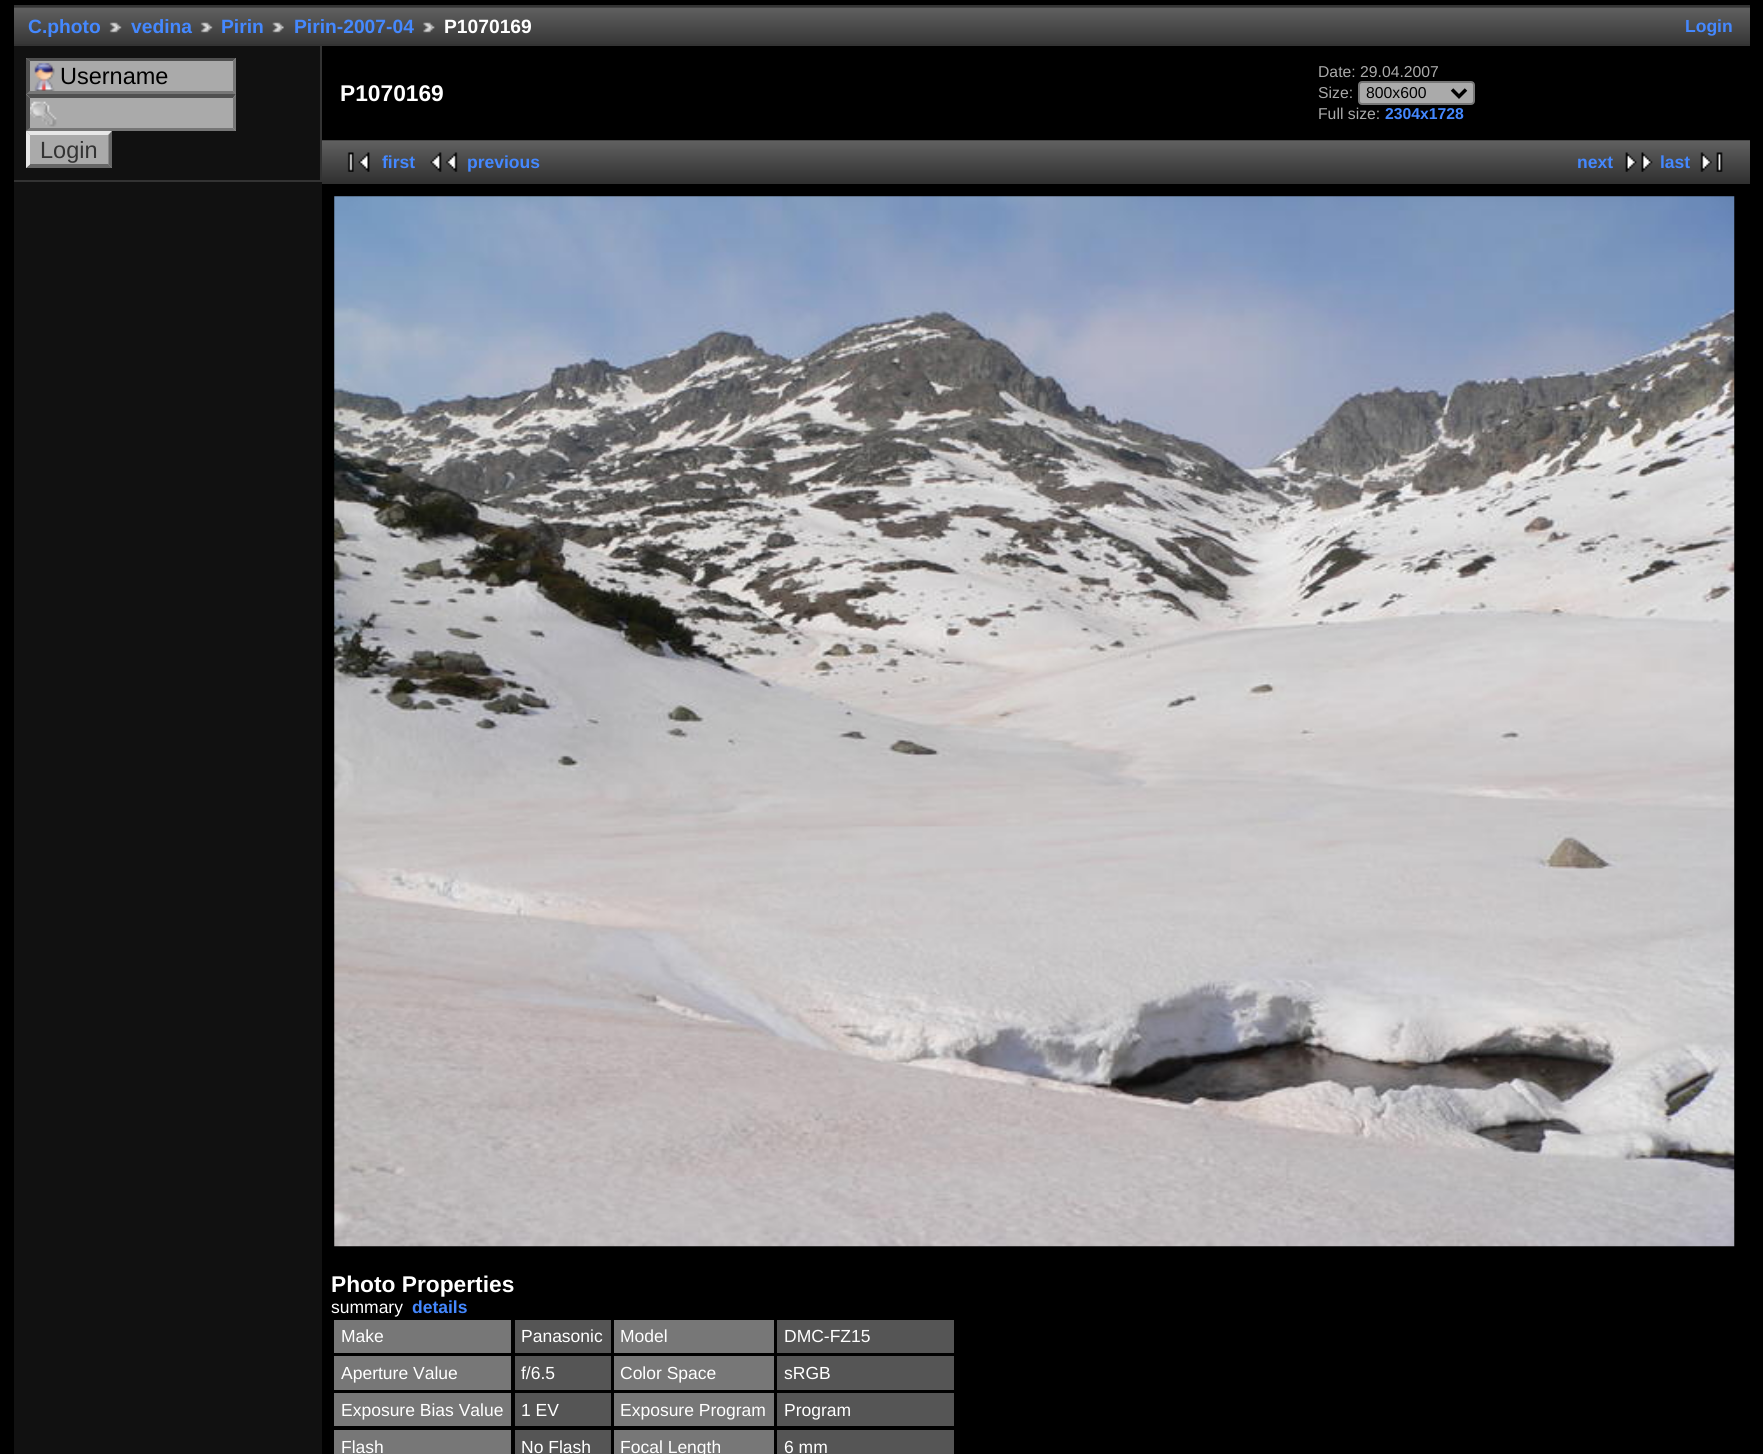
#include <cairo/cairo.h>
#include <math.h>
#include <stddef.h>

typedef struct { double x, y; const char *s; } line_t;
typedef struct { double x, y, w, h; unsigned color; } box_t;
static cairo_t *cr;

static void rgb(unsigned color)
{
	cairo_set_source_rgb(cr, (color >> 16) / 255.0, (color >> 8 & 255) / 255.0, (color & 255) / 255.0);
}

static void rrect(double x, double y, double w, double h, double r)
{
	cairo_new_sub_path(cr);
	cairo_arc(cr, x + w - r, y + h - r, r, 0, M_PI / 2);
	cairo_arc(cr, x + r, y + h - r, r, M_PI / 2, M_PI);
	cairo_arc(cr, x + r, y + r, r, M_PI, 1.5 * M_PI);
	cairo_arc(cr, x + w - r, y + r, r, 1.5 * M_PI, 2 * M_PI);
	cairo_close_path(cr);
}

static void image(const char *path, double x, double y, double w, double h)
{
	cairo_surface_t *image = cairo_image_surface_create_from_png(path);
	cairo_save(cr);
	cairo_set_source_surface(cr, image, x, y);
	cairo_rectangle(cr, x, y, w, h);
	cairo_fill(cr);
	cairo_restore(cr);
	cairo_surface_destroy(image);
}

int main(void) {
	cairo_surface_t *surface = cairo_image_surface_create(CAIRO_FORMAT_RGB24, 1763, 1454);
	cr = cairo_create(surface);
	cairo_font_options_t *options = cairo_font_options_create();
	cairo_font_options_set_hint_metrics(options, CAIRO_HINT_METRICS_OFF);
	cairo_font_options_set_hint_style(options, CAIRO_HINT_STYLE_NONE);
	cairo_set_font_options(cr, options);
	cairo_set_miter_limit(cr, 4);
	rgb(0x000000);
	cairo_paint(cr);
	image("img/1.png", 14, 7, 1736, 37);
	rgb(0x333333);
	cairo_rectangle(cr, 14, 5, 1736, 2);
	cairo_fill(cr);
	cairo_rectangle(cr, 14, 44, 1736, 2);
	cairo_fill(cr);
	image("img/2.png", 109, 22, 13, 11);
	image("img/2.png", 200, 22, 13, 11);
	image("img/3.png", 272, 22, 12, 11);
	image("img/4.png", 423, 22, 12, 11);
	{
		static const box_t items[] = {
			{14, 46, 308, 1408, 0x111111},
			{320, 46, 2, 136, 0x333333},
			{14, 180, 306, 2, 0x333333},
			{26, 58, 210, 73, 0xaaaaaa},
		};
		for (size_t i = 0; i < sizeof items / sizeof *items; i++) {
			rgb(items[i].color);
			cairo_rectangle(cr, items[i].x, items[i].y, items[i].w, items[i].h);
			cairo_fill(cr);
		}
	}
	image("img/5.png", 34, 63, 21, 28);
	rgb(0x4f4f4f);
	cairo_new_path(cr);
	cairo_move_to(cr, 26, 58);
	cairo_line_to(cr, 236, 58);
	cairo_line_to(cr, 233, 61);
	cairo_line_to(cr, 30, 61);
	cairo_close_path(cr);
	cairo_fill(cr);
	rgb(0x767676);
	cairo_new_path(cr);
	cairo_move_to(cr, 236, 58);
	cairo_line_to(cr, 236, 94.5);
	cairo_line_to(cr, 233, 91);
	cairo_line_to(cr, 233, 61);
	cairo_close_path(cr);
	cairo_fill(cr);
	cairo_new_path(cr);
	cairo_move_to(cr, 236, 94);
	cairo_line_to(cr, 26, 94);
	cairo_line_to(cr, 30, 91);
	cairo_line_to(cr, 233, 91);
	cairo_close_path(cr);
	cairo_fill(cr);
	rgb(0x4f4f4f);
	cairo_new_path(cr);
	cairo_move_to(cr, 26, 94.5);
	cairo_line_to(cr, 26, 58);
	cairo_line_to(cr, 30, 61);
	cairo_line_to(cr, 30, 91);
	cairo_close_path(cr);
	cairo_fill(cr);
	image("img/6.png", 30, 101, 27, 26);
	cairo_new_path(cr);
	cairo_move_to(cr, 26, 94);
	cairo_line_to(cr, 236, 94);
	cairo_line_to(cr, 233, 98);
	cairo_line_to(cr, 30, 98);
	cairo_close_path(cr);
	cairo_fill(cr);
	rgb(0x767676);
	cairo_new_path(cr);
	cairo_move_to(cr, 236, 94.5);
	cairo_line_to(cr, 236, 131);
	cairo_line_to(cr, 233, 128);
	cairo_line_to(cr, 233, 98);
	cairo_close_path(cr);
	cairo_fill(cr);
	cairo_new_path(cr);
	cairo_move_to(cr, 236, 131);
	cairo_line_to(cr, 26, 131);
	cairo_line_to(cr, 30, 128);
	cairo_line_to(cr, 233, 128);
	cairo_close_path(cr);
	cairo_fill(cr);
	rgb(0x4f4f4f);
	cairo_new_path(cr);
	cairo_move_to(cr, 26, 131);
	cairo_line_to(cr, 26, 94.5);
	cairo_line_to(cr, 30, 98);
	cairo_line_to(cr, 30, 128);
	cairo_close_path(cr);
	cairo_fill(cr);
	rgb(0xaaaaaa);
	cairo_rectangle(cr, 26, 131, 86, 37);
	cairo_fill(cr);
	rgb(0xe7e7e7);
	cairo_new_path(cr);
	cairo_move_to(cr, 26, 131);
	cairo_line_to(cr, 112, 131);
	cairo_line_to(cr, 108, 135);
	cairo_line_to(cr, 30, 135);
	cairo_close_path(cr);
	cairo_fill(cr);
	rgb(0x666666);
	cairo_new_path(cr);
	cairo_move_to(cr, 112, 131);
	cairo_line_to(cr, 112, 168);
	cairo_line_to(cr, 108.5, 164.5);
	cairo_line_to(cr, 108.5, 135);
	cairo_close_path(cr);
	cairo_fill(cr);
	cairo_new_path(cr);
	cairo_move_to(cr, 112, 168);
	cairo_line_to(cr, 26, 168);
	cairo_line_to(cr, 30, 164);
	cairo_line_to(cr, 108, 164);
	cairo_close_path(cr);
	cairo_fill(cr);
	rgb(0xe7e7e7);
	cairo_new_path(cr);
	cairo_move_to(cr, 26, 168);
	cairo_line_to(cr, 26, 131);
	cairo_line_to(cr, 30, 135);
	cairo_line_to(cr, 30, 164.5);
	cairo_close_path(cr);
	cairo_fill(cr);
	rgb(0xaaaaaa);
	rrect(1359, 82, 115, 22, 3);
	cairo_fill_preserve(cr);
	rgb(0x767676);
	cairo_stroke(cr);
	cairo_new_path(cr);
	cairo_move_to(cr, 1452, 89.5);
	cairo_line_to(cr, 1459, 96.5);
	cairo_line_to(cr, 1466, 89.5);
	rgb(0x000000);
	cairo_set_line_width(cr, 3.5);
	cairo_stroke(cr);
	image("img/7.png", 322, 140, 1428, 44);
	image("img/8.png", 347, 152, 23, 20);
	image("img/9.png", 430, 152, 28, 20);
	image("img/10.png", 1625, 152, 28, 20);
	image("img/11.png", 1700, 152, 23, 20);
	image("img/12.png", 334, 196, 1401, 1051);
	{
		static const box_t items[] = {
			{334, 1320, 177, 33, 0x777777},
			{515, 1320, 96, 33, 0x555555},
			{614, 1320, 160, 33, 0x777777},
			{777, 1320, 177, 33, 0x555555},
			{334, 1356, 177, 34, 0x777777},
			{515, 1356, 96, 34, 0x555555},
			{614, 1356, 160, 34, 0x777777},
			{777, 1356, 177, 34, 0x555555},
			{334, 1393, 177, 33, 0x777777},
			{515, 1393, 96, 33, 0x555555},
			{614, 1393, 160, 33, 0x777777},
			{777, 1393, 177, 33, 0x555555},
			{334, 1430, 177, 24, 0x777777},
			{515, 1430, 96, 24, 0x555555},
			{614, 1430, 160, 24, 0x777777},
			{777, 1430, 177, 24, 0x555555},
		};
		for (size_t i = 0; i < sizeof items / sizeof *items; i++) {
			rgb(items[i].color);
			cairo_rectangle(cr, items[i].x, items[i].y, items[i].w, items[i].h);
			cairo_fill(cr);
		}
	}
	cairo_select_font_face(cr, "Liberation Sans", CAIRO_FONT_SLANT_NORMAL, CAIRO_FONT_WEIGHT_BOLD);
	cairo_set_font_size(cr, 19.25);
	rgb(0x4488ff);
	{
		static const line_t items[] = {
			{28, 33, "C.photo"},
			{131, 33, "vedina"},
			{221, 33, "Pirin"},
			{294, 33, "Pirin-2007-04"},
		};
		for (size_t i = 0; i < sizeof items / sizeof *items; i++) {
			cairo_move_to(cr, items[i].x, items[i].y);
			cairo_show_text(cr, items[i].s);
		}
	}
	rgb(0xffffff);
	cairo_move_to(cr, 444, 33);
	cairo_show_text(cr, "P1070169");
	cairo_set_font_size(cr, 17.5);
	rgb(0x4488ff);
	cairo_move_to(cr, 1685, 32);
	cairo_show_text(cr, "Login");
	cairo_select_font_face(cr, "Liberation Sans", CAIRO_FONT_SLANT_NORMAL, CAIRO_FONT_WEIGHT_NORMAL);
	cairo_set_font_size(cr, 23.5);
	rgb(0x000000);
	cairo_move_to(cr, 60, 84);
	cairo_show_text(cr, "Username");
	rgb(0x333333);
	cairo_move_to(cr, 40, 158);
	cairo_show_text(cr, "Login");
	cairo_select_font_face(cr, "Liberation Sans", CAIRO_FONT_SLANT_NORMAL, CAIRO_FONT_WEIGHT_BOLD);
	cairo_set_font_size(cr, 22.75);
	rgb(0xffffff);
	cairo_move_to(cr, 340, 101);
	cairo_show_text(cr, "P1070169");
	cairo_select_font_face(cr, "Liberation Sans", CAIRO_FONT_SLANT_NORMAL, CAIRO_FONT_WEIGHT_NORMAL);
	cairo_set_font_size(cr, 15.75);
	rgb(0xaaaaaa);
	cairo_move_to(cr, 1318, 77);
	cairo_show_text(cr, "Date: 29.04.2007");
	cairo_move_to(cr, 1318, 98);
	cairo_show_text(cr, "Size:");
	rgb(0x000000);
	cairo_move_to(cr, 1366, 98);
	cairo_show_text(cr, "800x600");
	rgb(0xaaaaaa);
	cairo_move_to(cr, 1318, 119);
	cairo_show_text(cr, "Full size:");
	cairo_select_font_face(cr, "Liberation Sans", CAIRO_FONT_SLANT_NORMAL, CAIRO_FONT_WEIGHT_BOLD);
	rgb(0x4488ff);
	cairo_move_to(cr, 1385, 119);
	cairo_show_text(cr, "2304x1728");
	cairo_set_font_size(cr, 17.5);
	{
		static const line_t items[] = {
			{382, 168, "first"},
			{467, 168, "previous"},
			{1577, 168, "next"},
			{1660, 168, "last"},
		};
		for (size_t i = 0; i < sizeof items / sizeof *items; i++) {
			cairo_move_to(cr, items[i].x, items[i].y);
			cairo_show_text(cr, items[i].s);
		}
	}
	cairo_set_font_size(cr, 22.75);
	rgb(0xffffff);
	cairo_move_to(cr, 331, 1292);
	cairo_show_text(cr, "Photo Properties");
	cairo_select_font_face(cr, "Liberation Sans", CAIRO_FONT_SLANT_NORMAL, CAIRO_FONT_WEIGHT_NORMAL);
	cairo_set_font_size(cr, 17.5);
	cairo_move_to(cr, 331, 1313);
	cairo_show_text(cr, "summary");
	cairo_select_font_face(cr, "Liberation Sans", CAIRO_FONT_SLANT_NORMAL, CAIRO_FONT_WEIGHT_BOLD);
	rgb(0x4488ff);
	cairo_move_to(cr, 412, 1313);
	cairo_show_text(cr, "details");
	cairo_select_font_face(cr, "Liberation Sans", CAIRO_FONT_SLANT_NORMAL, CAIRO_FONT_WEIGHT_NORMAL);
	rgb(0xffffff);
	{
		static const line_t items[] = {
			{341, 1342, "Make"},
			{521, 1342, "Panasonic"},
			{620, 1342, "Model"},
			{784, 1342, "DMC-FZ15"},
			{341, 1379, "Aperture Value"},
			{521, 1379, "f/6.5"},
			{620, 1379, "Color Space"},
			{784, 1379, "sRGB"},
			{341, 1416, "Exposure Bias Value"},
			{521, 1416, "1 EV"},
			{620, 1416, "Exposure Program"},
			{784, 1416, "Program"},
			{341, 1453, "Flash"},
			{521, 1453, "No Flash"},
			{620, 1453, "Focal Length"},
			{784, 1453, "6 mm"},
		};
		for (size_t i = 0; i < sizeof items / sizeof *items; i++) {
			cairo_move_to(cr, items[i].x, items[i].y);
			cairo_show_text(cr, items[i].s);
		}
	}
	cairo_surface_write_to_png(surface, "page.png");
	cairo_font_options_destroy(options);
	cairo_destroy(cr);
	cairo_surface_destroy(surface);
	return 0;
}
